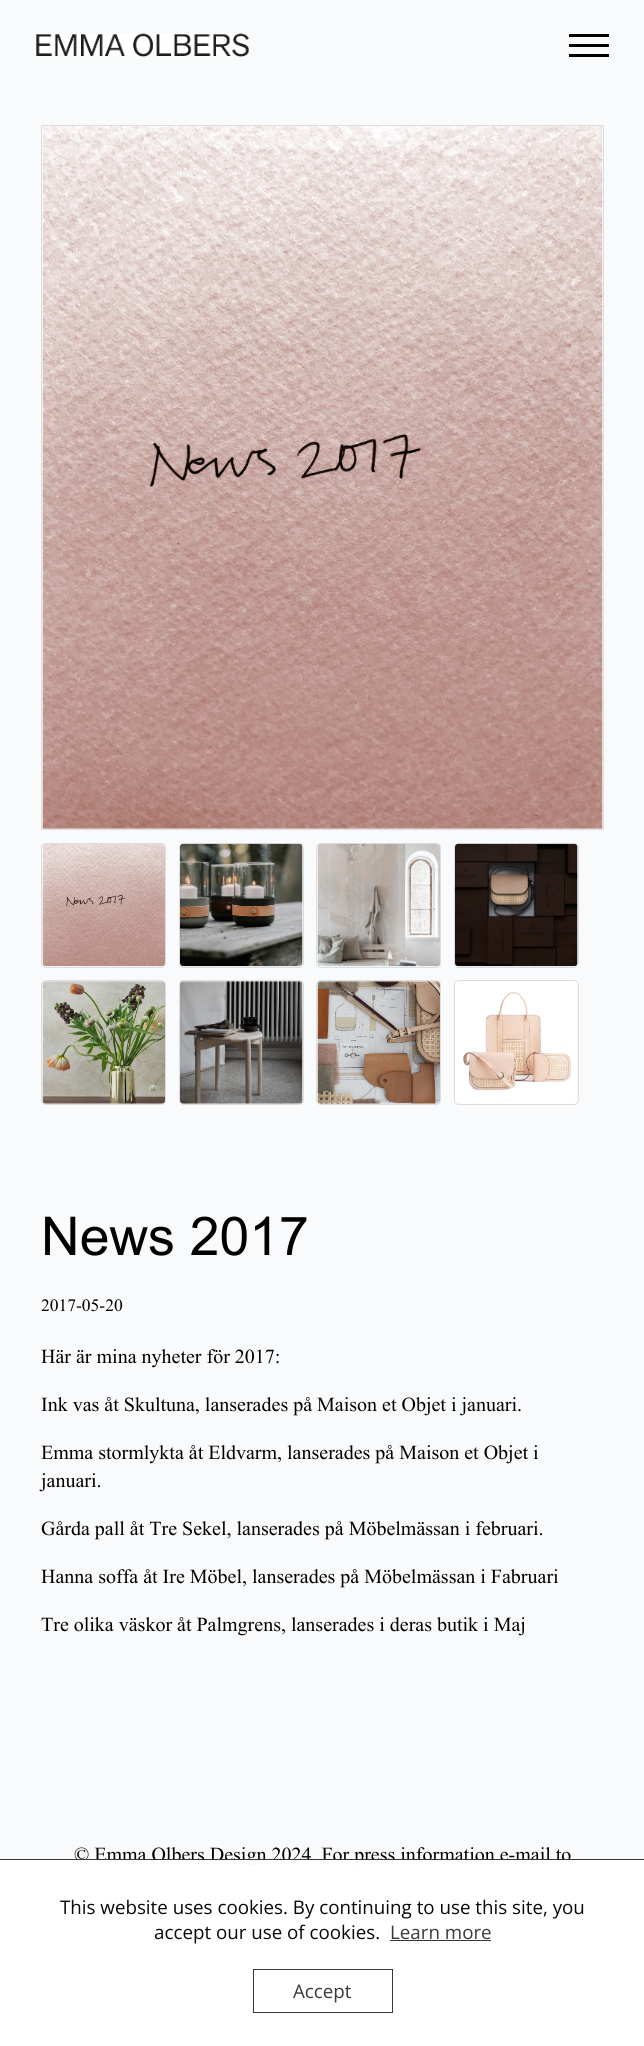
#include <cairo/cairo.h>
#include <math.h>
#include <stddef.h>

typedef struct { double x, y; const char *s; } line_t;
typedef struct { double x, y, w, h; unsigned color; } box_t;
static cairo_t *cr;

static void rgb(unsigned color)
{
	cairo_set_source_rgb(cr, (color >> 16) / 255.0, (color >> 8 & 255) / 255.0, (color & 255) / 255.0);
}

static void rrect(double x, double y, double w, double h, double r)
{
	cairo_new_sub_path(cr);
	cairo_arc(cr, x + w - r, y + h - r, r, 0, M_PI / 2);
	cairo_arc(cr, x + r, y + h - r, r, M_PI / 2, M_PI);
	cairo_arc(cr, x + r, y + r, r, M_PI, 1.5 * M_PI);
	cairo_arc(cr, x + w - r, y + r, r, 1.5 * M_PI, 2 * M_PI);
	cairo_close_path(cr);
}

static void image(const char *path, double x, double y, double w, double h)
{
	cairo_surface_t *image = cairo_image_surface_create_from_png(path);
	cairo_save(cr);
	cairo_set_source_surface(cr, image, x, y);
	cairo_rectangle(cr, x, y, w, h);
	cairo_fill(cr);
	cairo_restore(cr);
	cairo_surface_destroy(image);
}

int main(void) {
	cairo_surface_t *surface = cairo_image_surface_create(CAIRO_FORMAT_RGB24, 644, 2046);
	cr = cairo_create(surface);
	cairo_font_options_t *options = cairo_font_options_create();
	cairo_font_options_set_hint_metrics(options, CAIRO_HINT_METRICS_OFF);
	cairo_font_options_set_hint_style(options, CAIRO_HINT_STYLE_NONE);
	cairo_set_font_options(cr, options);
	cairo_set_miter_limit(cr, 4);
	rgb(0xf9fafb);
	cairo_paint(cr);
	image("img/1.png", 36, 33, 213, 24);
	{
		static const box_t items[] = {
			{569, 44, 40, 3, 0x000000},
			{569, 34, 40, 3, 0x000000},
			{569, 54, 40, 3, 0x000000},
		};
		for (size_t i = 0; i < sizeof items / sizeof *items; i++) {
			rgb(items[i].color);
			cairo_rectangle(cr, items[i].x, items[i].y, items[i].w, items[i].h);
			cairo_fill(cr);
		}
	}
	cairo_rectangle(cr, 41.5, 125.5, 562, 704);
	rgb(0xdddddd);
	cairo_set_line_width(cr, 1);
	cairo_stroke(cr);
	image("img/2.png", 42, 126, 561, 703);
	rrect(41.5, 843.5, 124, 124, 4.5);
	cairo_stroke(cr);
	image("img/3.png", 42, 844, 123, 123);
	rrect(179.5, 843.5, 124, 124, 4.5);
	cairo_stroke(cr);
	image("img/4.png", 180, 843, 123, 124);
	rrect(316.5, 843.5, 124, 124, 4.5);
	cairo_stroke(cr);
	image("img/5.png", 317, 843, 123, 124);
	rrect(454.5, 843.5, 124, 124, 4.5);
	cairo_stroke(cr);
	image("img/6.png", 455, 843, 123, 124);
	rrect(41.5, 980.5, 124, 124, 4.5);
	cairo_stroke(cr);
	image("img/7.png", 42, 981, 123, 123);
	rrect(179.5, 980.5, 124, 124, 4.5);
	cairo_stroke(cr);
	image("img/8.png", 180, 981, 123, 123);
	rrect(316.5, 980.5, 124, 124, 4.5);
	cairo_stroke(cr);
	image("img/9.png", 317, 981, 123, 123);
	rrect(454.5, 980.5, 124, 124, 4.5);
	cairo_stroke(cr);
	image("img/10.png", 455, 981, 122, 123);
	cairo_select_font_face(cr, "Arial", CAIRO_FONT_SLANT_NORMAL, CAIRO_FONT_WEIGHT_NORMAL);
	cairo_set_font_size(cr, 53.5);
	rgb(0x000000);
	cairo_move_to(cr, 41, 1255);
	cairo_show_text(cr, "News 2017");
	cairo_select_font_face(cr, "Times New Roman", CAIRO_FONT_SLANT_NORMAL, CAIRO_FONT_WEIGHT_NORMAL);
	cairo_set_font_size(cr, 17.5);
	cairo_move_to(cr, 41, 1311);
	cairo_show_text(cr, "2017-05-20");
	cairo_set_font_size(cr, 20);
	{
		static const line_t items[] = {
			{41, 1363, "Här är mina nyheter för 2017:"},
			{41, 1411, "Ink vas åt Skultuna, lanserades på Maison et Objet i januari."},
			{41, 1459, "Emma stormlykta åt Eldvarm, lanserades på Maison et Objet i"},
			{41, 1487, "januari."},
			{41, 1535, "Gårda pall åt Tre Sekel, lanserades på Möbelmässan i februari."},
			{41, 1583, "Hanna soffa åt Ire Möbel, lanserades på Möbelmässan i Fabruari"},
			{41, 1631, "Tre olika väskor åt Palmgrens, lanserades i deras butik i Maj"},
			{74, 1861, "© Emma Olbers Design 2024. For press information e-mail to"},
		};
		for (size_t i = 0; i < sizeof items / sizeof *items; i++) {
			cairo_move_to(cr, items[i].x, items[i].y);
			cairo_show_text(cr, items[i].s);
		}
	}
	cairo_set_source_rgba(cr, 1, 1, 1, 0.97);
	cairo_rectangle(cr, 0, 1859, 644, 187);
	cairo_fill(cr);
	cairo_set_source_rgba(cr, 0.2, 0.2, 0.2, 0.97);
	cairo_rectangle(cr, 0, 1859, 644, 1);
	cairo_fill(cr);
	cairo_select_font_face(cr, "Open Sans", CAIRO_FONT_SLANT_NORMAL, CAIRO_FONT_WEIGHT_NORMAL);
	cairo_set_font_size(cr, 18.75);
	rgb(0x070808);
	cairo_move_to(cr, 60, 1914);
	cairo_show_text(cr, "This website uses cookies. By continuing to use this site, you");
	cairo_move_to(cr, 154, 1939);
	cairo_show_text(cr, "accept our use of cookies.");
	rgb(0x393939);
	cairo_move_to(cr, 390, 1939);
	cairo_show_text(cr, "Learn more");
	cairo_rectangle(cr, 390, 1940, 101, 1);
	cairo_fill(cr);
	cairo_rectangle(cr, 253.5, 1969.5, 139, 43);
	cairo_stroke(cr);
	cairo_move_to(cr, 293, 1998);
	cairo_show_text(cr, "Accept");
	cairo_surface_write_to_png(surface, "page.png");
	cairo_font_options_destroy(options);
	cairo_destroy(cr);
	cairo_surface_destroy(surface);
	return 0;
}
